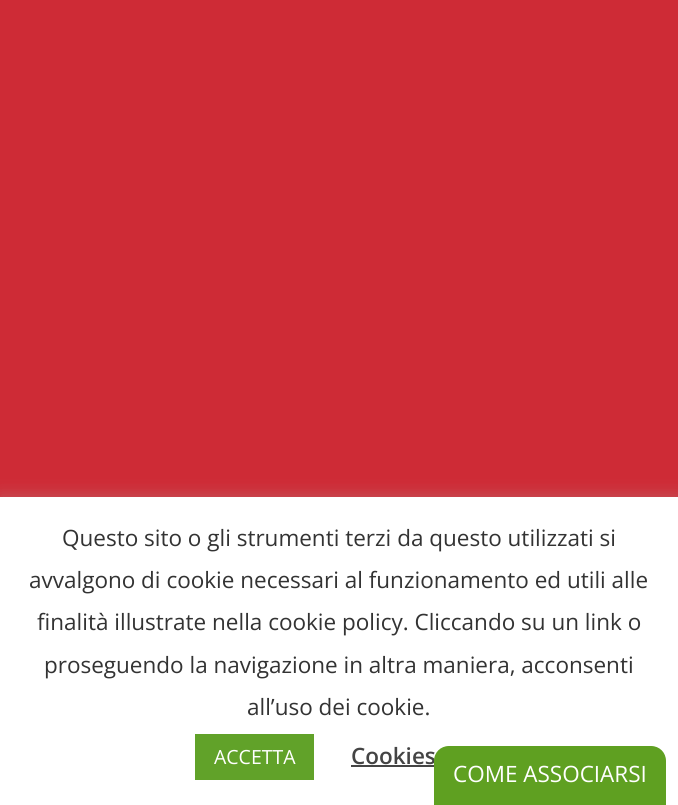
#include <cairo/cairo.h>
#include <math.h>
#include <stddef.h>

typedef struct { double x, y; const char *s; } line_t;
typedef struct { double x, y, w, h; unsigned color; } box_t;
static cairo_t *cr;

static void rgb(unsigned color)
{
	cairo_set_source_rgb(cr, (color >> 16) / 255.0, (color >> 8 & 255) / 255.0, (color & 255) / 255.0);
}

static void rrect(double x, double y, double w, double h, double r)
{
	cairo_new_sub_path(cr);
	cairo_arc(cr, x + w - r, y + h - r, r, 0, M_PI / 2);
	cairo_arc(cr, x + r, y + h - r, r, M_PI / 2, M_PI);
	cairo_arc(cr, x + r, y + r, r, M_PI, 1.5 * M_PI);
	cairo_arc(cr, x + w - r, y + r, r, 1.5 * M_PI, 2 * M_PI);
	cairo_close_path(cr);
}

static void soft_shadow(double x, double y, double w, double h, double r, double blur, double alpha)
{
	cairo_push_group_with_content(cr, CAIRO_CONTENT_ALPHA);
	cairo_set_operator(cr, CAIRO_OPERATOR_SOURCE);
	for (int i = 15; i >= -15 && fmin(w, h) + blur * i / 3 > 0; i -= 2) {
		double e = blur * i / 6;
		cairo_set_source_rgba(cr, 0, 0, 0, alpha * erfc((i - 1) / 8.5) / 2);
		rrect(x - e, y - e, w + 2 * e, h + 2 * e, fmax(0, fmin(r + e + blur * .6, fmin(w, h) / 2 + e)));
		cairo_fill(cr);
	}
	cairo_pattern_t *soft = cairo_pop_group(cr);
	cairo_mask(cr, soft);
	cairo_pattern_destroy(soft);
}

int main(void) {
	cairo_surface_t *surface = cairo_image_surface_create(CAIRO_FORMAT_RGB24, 678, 805);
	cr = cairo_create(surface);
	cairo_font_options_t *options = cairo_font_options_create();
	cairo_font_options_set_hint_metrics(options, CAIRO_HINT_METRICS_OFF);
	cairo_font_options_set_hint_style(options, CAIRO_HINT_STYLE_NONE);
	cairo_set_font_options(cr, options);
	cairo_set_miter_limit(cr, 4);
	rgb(0xce2b36);
	cairo_paint(cr);
	rgb(0xacabab);
	soft_shadow(0, 495, 678, 309, 0, 7.5, 0.3);
	{
		static const box_t items[] = {
			{0, 497, 678, 308, 0xffffff},
			{195, 734, 119, 46, 0x61a229},
			{351, 765, 83, 2, 0x444444},
		};
		for (size_t i = 0; i < sizeof items / sizeof *items; i++) {
			rgb(items[i].color);
			cairo_rectangle(cr, items[i].x, items[i].y, items[i].w, items[i].h);
			cairo_fill(cr);
		}
	}
	cairo_select_font_face(cr, "Open Sans", CAIRO_FONT_SLANT_NORMAL, CAIRO_FONT_WEIGHT_NORMAL);
	cairo_set_font_size(cr, 22.5);
	rgb(0x333333);
	{
		static const line_t items[] = {
			{62, 546, "Questo sito o gli strumenti terzi da questo utilizzati si"},
			{29, 588, "avvalgono di cookie necessari al funzionamento ed utili alle"},
			{37, 630, "finalità illustrate nella cookie policy. Cliccando su un link o"},
			{44, 673, "proseguendo la navigazione in altra maniera, acconsenti"},
			{247, 715, "all’uso dei cookie."},
		};
		for (size_t i = 0; i < sizeof items / sizeof *items; i++) {
			cairo_move_to(cr, items[i].x, items[i].y);
			cairo_show_text(cr, items[i].s);
		}
	}
	cairo_set_font_size(cr, 19.5);
	rgb(0xffffff);
	cairo_move_to(cr, 214, 764);
	cairo_show_text(cr, "ACCETTA");
	cairo_select_font_face(cr, "Open Sans SemiBold", CAIRO_FONT_SLANT_NORMAL, CAIRO_FONT_WEIGHT_NORMAL);
	cairo_set_font_size(cr, 22.5);
	rgb(0x444444);
	cairo_move_to(cr, 351, 764);
	cairo_show_text(cr, "Cookies");
	rgb(0x5fa021);
	cairo_new_path(cr);
	cairo_move_to(cr, 449, 746);
	cairo_line_to(cr, 651, 746);
	cairo_curve_to(cr, 659.5, 746, 666, 752.5, 666, 761);
	cairo_line_to(cr, 666, 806);
	cairo_line_to(cr, 434, 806);
	cairo_line_to(cr, 434, 761);
	cairo_curve_to(cr, 434, 752.5, 440.5, 746, 449, 746);
	cairo_close_path(cr);
	cairo_fill(cr);
	cairo_select_font_face(cr, "Open Sans", CAIRO_FONT_SLANT_NORMAL, CAIRO_FONT_WEIGHT_NORMAL);
	rgb(0xffffff);
	cairo_move_to(cr, 453, 782);
	cairo_show_text(cr, "COME ASSOCIARSI");
	cairo_surface_write_to_png(surface, "page.png");
	cairo_font_options_destroy(options);
	cairo_destroy(cr);
	cairo_surface_destroy(surface);
	return 0;
}
